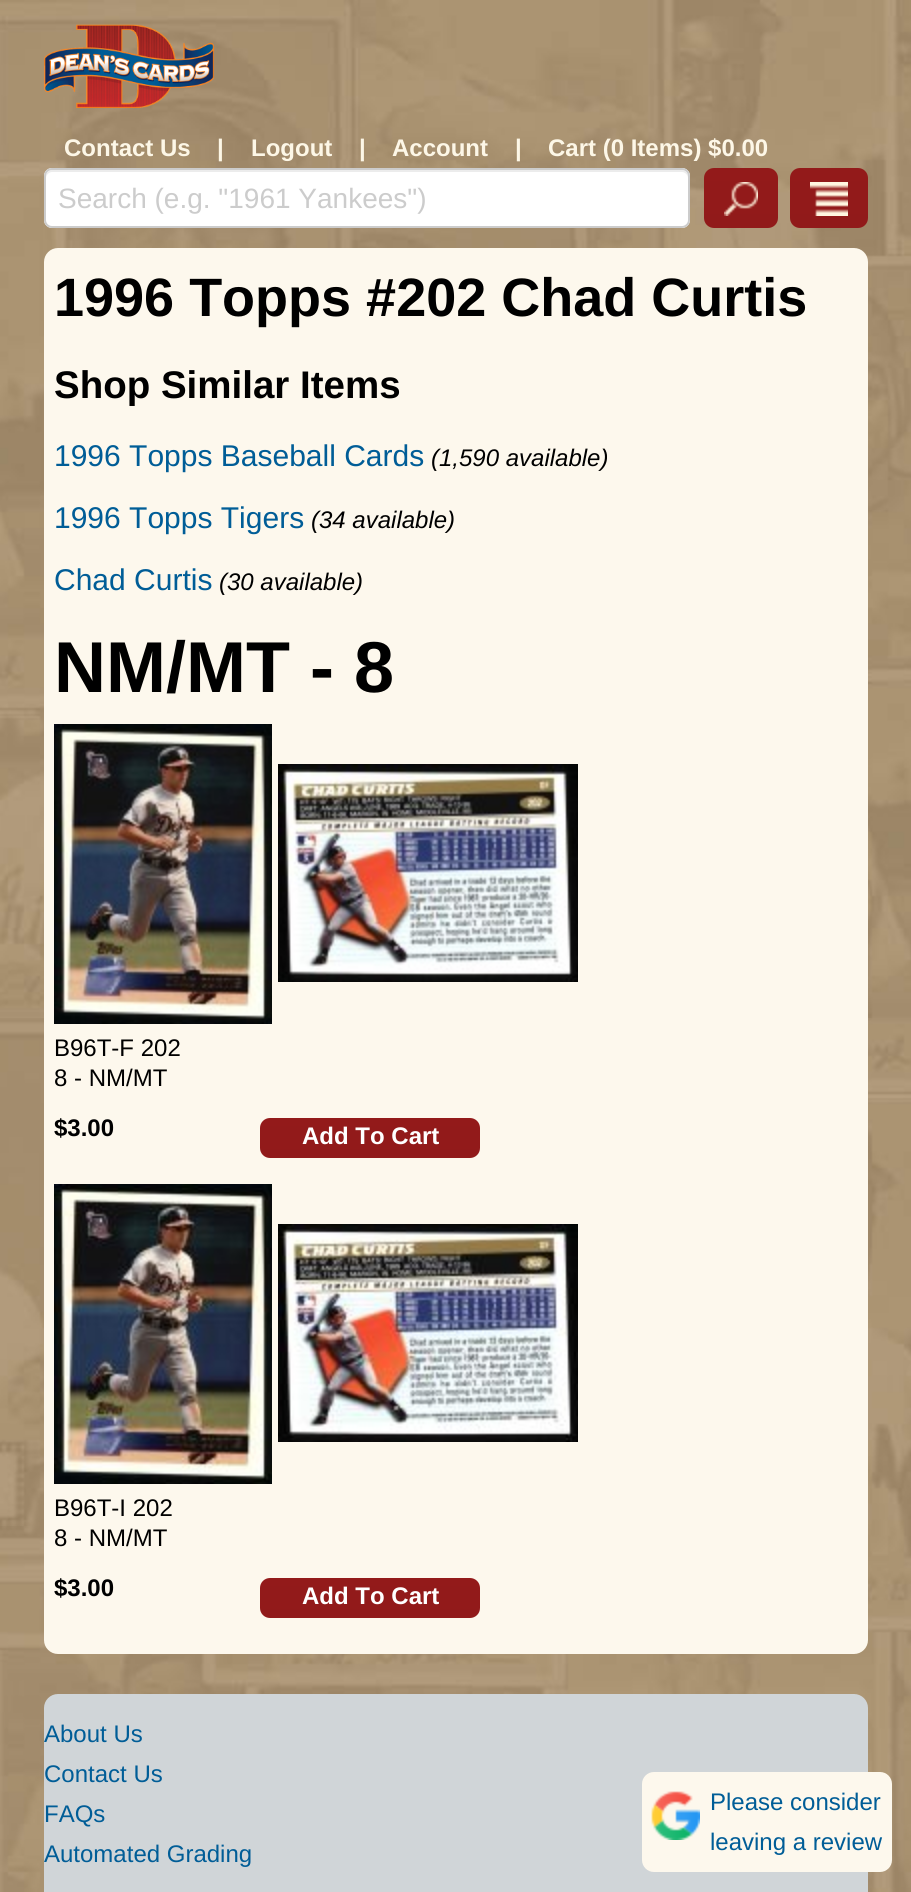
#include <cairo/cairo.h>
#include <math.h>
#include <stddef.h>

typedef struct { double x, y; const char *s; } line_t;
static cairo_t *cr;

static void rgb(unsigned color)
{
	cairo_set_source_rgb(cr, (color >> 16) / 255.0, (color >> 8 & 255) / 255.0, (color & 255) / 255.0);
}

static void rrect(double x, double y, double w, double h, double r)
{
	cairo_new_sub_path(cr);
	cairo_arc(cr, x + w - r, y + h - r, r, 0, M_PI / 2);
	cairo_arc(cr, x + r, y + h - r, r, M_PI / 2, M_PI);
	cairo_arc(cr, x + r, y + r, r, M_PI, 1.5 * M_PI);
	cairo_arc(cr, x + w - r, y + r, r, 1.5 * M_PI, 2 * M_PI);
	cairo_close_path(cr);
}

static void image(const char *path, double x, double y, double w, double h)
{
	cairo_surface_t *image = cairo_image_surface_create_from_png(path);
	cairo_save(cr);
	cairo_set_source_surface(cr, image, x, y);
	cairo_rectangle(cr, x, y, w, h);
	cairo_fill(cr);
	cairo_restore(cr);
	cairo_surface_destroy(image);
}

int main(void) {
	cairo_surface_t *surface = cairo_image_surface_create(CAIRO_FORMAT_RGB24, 911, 1892);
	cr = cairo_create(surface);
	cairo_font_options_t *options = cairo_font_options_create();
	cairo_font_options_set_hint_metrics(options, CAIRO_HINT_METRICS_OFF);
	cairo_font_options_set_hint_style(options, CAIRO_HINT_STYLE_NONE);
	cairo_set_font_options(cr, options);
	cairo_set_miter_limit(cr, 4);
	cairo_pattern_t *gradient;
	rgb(0xffffff);
	cairo_paint(cr);
	image("img/1.png", 0, 0, 911, 1892);
	image("img/2.png", 44, 24, 170, 84);
	rgb(0xffffff);
	rrect(44, 168, 646, 60, 8);
	cairo_fill(cr);
	rgb(0xececec);
	cairo_new_path(cr);
	cairo_move_to(cr, 52, 172);
	cairo_line_to(cr, 682, 172);
	cairo_curve_to(cr, 685, 172, 688, 175, 688, 178);
	cairo_line_to(cr, 688, 176);
	cairo_curve_to(cr, 688, 173, 685, 170, 682, 170);
	cairo_line_to(cr, 52, 170);
	cairo_curve_to(cr, 49, 170, 46, 173, 46, 176);
	cairo_line_to(cr, 46, 178);
	cairo_curve_to(cr, 46, 175, 49, 172, 52, 172);
	cairo_close_path(cr);
	cairo_fill(cr);
	rrect(45, 169, 644, 58, 7);
	rgb(0xcccccc);
	cairo_stroke(cr);
	gradient = cairo_pattern_create_linear(741, 168, 741, 228);
	cairo_pattern_add_color_stop_rgba(gradient, 0, 0.576, 0.102, 0.102, 1);
	cairo_pattern_add_color_stop_rgba(gradient, 1, 0.569, 0.102, 0.102, 1);
	cairo_set_source(cr, gradient);
	cairo_pattern_destroy(gradient);
	rrect(704, 168, 74, 60, 10);
	cairo_fill(cr);
	image("img/3.png", 724, 182, 34, 34);
	gradient = cairo_pattern_create_linear(829, 168, 829, 228);
	cairo_pattern_add_color_stop_rgba(gradient, 0, 0.576, 0.102, 0.102, 1);
	cairo_pattern_add_color_stop_rgba(gradient, 1, 0.569, 0.102, 0.102, 1);
	cairo_set_source(cr, gradient);
	cairo_pattern_destroy(gradient);
	rrect(790, 168, 78, 60, 10);
	cairo_fill(cr);
	image("img/4.png", 810, 182, 38, 34);
	rgb(0xfdf8ed);
	rrect(44, 248, 824, 1406, 14);
	cairo_fill(cr);
	image("img/5.png", 54, 724, 218, 300);
	image("img/6.png", 278, 764, 300, 218);
	gradient = cairo_pattern_create_linear(370, 1118, 370, 1158);
	cairo_pattern_add_color_stop_rgba(gradient, 0, 0.576, 0.102, 0.102, 1);
	cairo_pattern_add_color_stop_rgba(gradient, 1, 0.569, 0.102, 0.102, 1);
	cairo_set_source(cr, gradient);
	cairo_pattern_destroy(gradient);
	rrect(260, 1118, 220, 40, 10);
	cairo_fill(cr);
	image("img/7.png", 54, 1184, 218, 300);
	image("img/8.png", 278, 1224, 300, 218);
	gradient = cairo_pattern_create_linear(370, 1578, 370, 1618);
	cairo_pattern_add_color_stop_rgba(gradient, 0, 0.576, 0.102, 0.102, 1);
	cairo_pattern_add_color_stop_rgba(gradient, 1, 0.569, 0.102, 0.102, 1);
	cairo_set_source(cr, gradient);
	cairo_pattern_destroy(gradient);
	rrect(260, 1578, 220, 40, 10);
	cairo_fill(cr);
	rgb(0xd0d5d8);
	rrect(44, 1694, 824, 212, 14);
	cairo_fill(cr);
	rgb(0xfdf8ed);
	rrect(642, 1772, 250, 100, 12);
	cairo_fill(cr);
	image("img/9.png", 651, 1791, 49, 49);
	cairo_select_font_face(cr, "Liberation Sans", CAIRO_FONT_SLANT_NORMAL, CAIRO_FONT_WEIGHT_BOLD);
	cairo_set_font_size(cr, 24);
	rgb(0xfdf7e7);
	{
		static const line_t items[] = {
			{64, 156, "Contact Us"},
			{217, 156, "|"},
			{251, 156, "Logout"},
			{359, 156, "|"},
			{392, 156, "Account"},
			{515, 156, "|"},
			{548, 156, "Cart (0 Items) $0.00"},
		};
		for (size_t i = 0; i < sizeof items / sizeof *items; i++) {
			cairo_move_to(cr, items[i].x, items[i].y);
			cairo_show_text(cr, items[i].s);
		}
	}
	cairo_select_font_face(cr, "Liberation Sans", CAIRO_FONT_SLANT_NORMAL, CAIRO_FONT_WEIGHT_NORMAL);
	cairo_set_font_size(cr, 28);
	rgb(0xcccccc);
	cairo_move_to(cr, 58, 208);
	cairo_show_text(cr, "Search (e.g. \"1961 Yankees\")");
	cairo_select_font_face(cr, "Liberation Sans", CAIRO_FONT_SLANT_NORMAL, CAIRO_FONT_WEIGHT_BOLD);
	cairo_set_font_size(cr, 54);
	rgb(0x000000);
	cairo_move_to(cr, 54, 316);
	cairo_show_text(cr, "1996 Topps #202 Chad Curtis");
	cairo_set_font_size(cr, 38.5);
	cairo_move_to(cr, 54, 398);
	cairo_show_text(cr, "Shop Similar Items");
	cairo_select_font_face(cr, "Liberation Sans", CAIRO_FONT_SLANT_NORMAL, CAIRO_FONT_WEIGHT_NORMAL);
	cairo_set_font_size(cr, 30);
	rgb(0x005d97);
	cairo_move_to(cr, 54, 466);
	cairo_show_text(cr, "1996 Topps Baseball Cards");
	cairo_select_font_face(cr, "Liberation Sans", CAIRO_FONT_SLANT_ITALIC, CAIRO_FONT_WEIGHT_NORMAL);
	cairo_set_font_size(cr, 24);
	rgb(0x000000);
	cairo_move_to(cr, 431, 466);
	cairo_show_text(cr, "(1,590 available)");
	cairo_select_font_face(cr, "Liberation Sans", CAIRO_FONT_SLANT_NORMAL, CAIRO_FONT_WEIGHT_NORMAL);
	cairo_set_font_size(cr, 30);
	rgb(0x005d97);
	cairo_move_to(cr, 54, 528);
	cairo_show_text(cr, "1996 Topps Tigers");
	cairo_select_font_face(cr, "Liberation Sans", CAIRO_FONT_SLANT_ITALIC, CAIRO_FONT_WEIGHT_NORMAL);
	cairo_set_font_size(cr, 24);
	rgb(0x000000);
	cairo_move_to(cr, 311, 528);
	cairo_show_text(cr, "(34 available)");
	cairo_select_font_face(cr, "Liberation Sans", CAIRO_FONT_SLANT_NORMAL, CAIRO_FONT_WEIGHT_NORMAL);
	cairo_set_font_size(cr, 30);
	rgb(0x005d97);
	cairo_move_to(cr, 54, 590);
	cairo_show_text(cr, "Chad Curtis");
	cairo_select_font_face(cr, "Liberation Sans", CAIRO_FONT_SLANT_ITALIC, CAIRO_FONT_WEIGHT_NORMAL);
	cairo_set_font_size(cr, 24);
	rgb(0x000000);
	cairo_move_to(cr, 219, 590);
	cairo_show_text(cr, "(30 available)");
	cairo_select_font_face(cr, "Liberation Sans", CAIRO_FONT_SLANT_NORMAL, CAIRO_FONT_WEIGHT_BOLD);
	cairo_set_font_size(cr, 72);
	cairo_move_to(cr, 54, 692);
	cairo_show_text(cr, "NM/MT - 8");
	cairo_select_font_face(cr, "Liberation Sans", CAIRO_FONT_SLANT_NORMAL, CAIRO_FONT_WEIGHT_NORMAL);
	cairo_set_font_size(cr, 24);
	cairo_move_to(cr, 54, 1056);
	cairo_show_text(cr, "B96T-F 202");
	cairo_move_to(cr, 54, 1086);
	cairo_show_text(cr, "8 - NM/MT");
	cairo_select_font_face(cr, "Liberation Sans", CAIRO_FONT_SLANT_NORMAL, CAIRO_FONT_WEIGHT_BOLD);
	cairo_move_to(cr, 54, 1136);
	cairo_show_text(cr, "$3.00");
	rgb(0xffffff);
	cairo_move_to(cr, 302, 1144);
	cairo_show_text(cr, "Add To Cart");
	cairo_select_font_face(cr, "Liberation Sans", CAIRO_FONT_SLANT_NORMAL, CAIRO_FONT_WEIGHT_NORMAL);
	rgb(0x000000);
	cairo_move_to(cr, 54, 1516);
	cairo_show_text(cr, "B96T-I 202");
	cairo_move_to(cr, 54, 1546);
	cairo_show_text(cr, "8 - NM/MT");
	cairo_select_font_face(cr, "Liberation Sans", CAIRO_FONT_SLANT_NORMAL, CAIRO_FONT_WEIGHT_BOLD);
	cairo_move_to(cr, 54, 1596);
	cairo_show_text(cr, "$3.00");
	rgb(0xffffff);
	cairo_move_to(cr, 302, 1604);
	cairo_show_text(cr, "Add To Cart");
	cairo_select_font_face(cr, "Liberation Sans", CAIRO_FONT_SLANT_NORMAL, CAIRO_FONT_WEIGHT_NORMAL);
	rgb(0x005d97);
	{
		static const line_t items[] = {
			{44, 1742, "About Us"},
			{44, 1782, "Contact Us"},
			{44, 1822, "FAQs"},
			{44, 1862, "Automated Grading"},
			{710, 1810, "Please consider"},
			{710, 1850, "leaving a review"},
		};
		for (size_t i = 0; i < sizeof items / sizeof *items; i++) {
			cairo_move_to(cr, items[i].x, items[i].y);
			cairo_show_text(cr, items[i].s);
		}
	}
	cairo_surface_write_to_png(surface, "page.png");
	cairo_font_options_destroy(options);
	cairo_destroy(cr);
	cairo_surface_destroy(surface);
	return 0;
}
